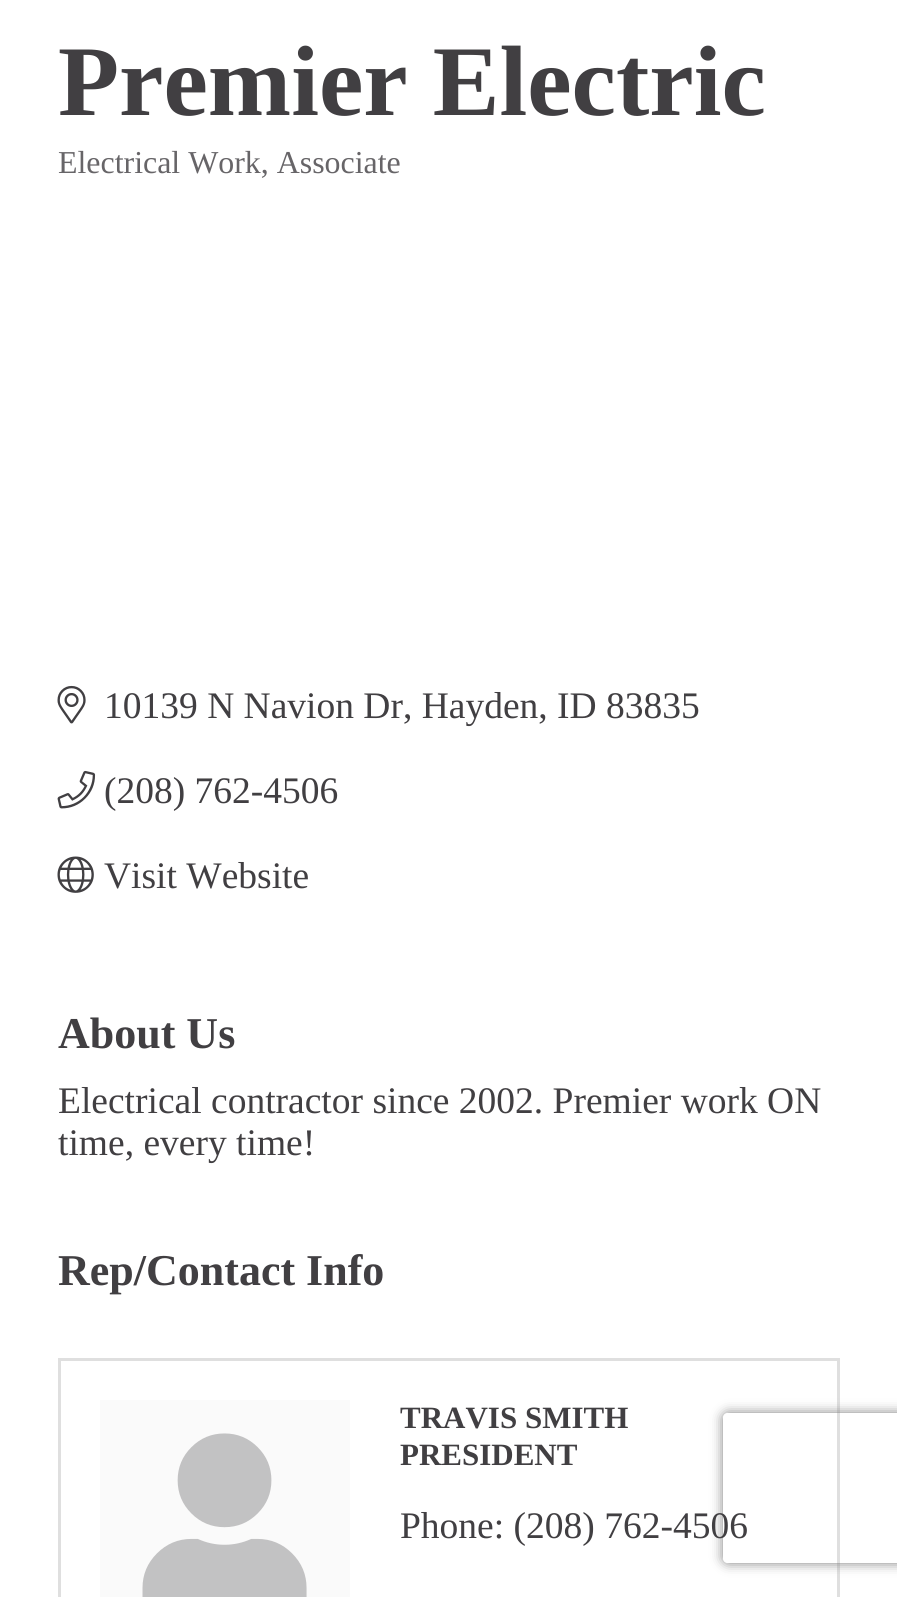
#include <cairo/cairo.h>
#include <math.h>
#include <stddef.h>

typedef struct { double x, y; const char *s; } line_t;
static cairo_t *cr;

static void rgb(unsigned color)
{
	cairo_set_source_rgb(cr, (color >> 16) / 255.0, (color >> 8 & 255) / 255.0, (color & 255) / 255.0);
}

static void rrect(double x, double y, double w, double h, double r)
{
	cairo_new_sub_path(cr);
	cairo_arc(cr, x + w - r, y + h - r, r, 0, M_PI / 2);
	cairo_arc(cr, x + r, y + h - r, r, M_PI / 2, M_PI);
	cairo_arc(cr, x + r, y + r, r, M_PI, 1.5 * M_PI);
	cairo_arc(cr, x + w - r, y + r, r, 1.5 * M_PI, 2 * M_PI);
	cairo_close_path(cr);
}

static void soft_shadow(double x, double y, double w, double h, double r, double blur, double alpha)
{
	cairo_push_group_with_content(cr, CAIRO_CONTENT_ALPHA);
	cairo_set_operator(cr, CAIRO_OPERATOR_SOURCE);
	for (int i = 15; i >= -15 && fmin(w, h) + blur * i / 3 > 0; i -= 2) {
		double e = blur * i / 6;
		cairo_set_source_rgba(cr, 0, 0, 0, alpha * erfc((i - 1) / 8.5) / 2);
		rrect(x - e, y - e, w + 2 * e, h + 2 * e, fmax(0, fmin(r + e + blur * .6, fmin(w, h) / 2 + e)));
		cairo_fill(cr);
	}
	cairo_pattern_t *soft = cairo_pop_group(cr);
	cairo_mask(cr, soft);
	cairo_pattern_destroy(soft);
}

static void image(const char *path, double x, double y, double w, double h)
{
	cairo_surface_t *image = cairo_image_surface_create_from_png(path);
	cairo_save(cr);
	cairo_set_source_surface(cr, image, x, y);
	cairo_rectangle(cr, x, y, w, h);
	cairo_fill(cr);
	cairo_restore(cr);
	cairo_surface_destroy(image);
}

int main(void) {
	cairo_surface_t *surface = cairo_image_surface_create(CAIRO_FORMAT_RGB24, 897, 1597);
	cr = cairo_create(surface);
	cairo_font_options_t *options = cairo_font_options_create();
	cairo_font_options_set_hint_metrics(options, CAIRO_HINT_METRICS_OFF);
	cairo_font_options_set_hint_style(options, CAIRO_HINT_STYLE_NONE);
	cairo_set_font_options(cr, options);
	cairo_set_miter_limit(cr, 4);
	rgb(0xffffff);
	cairo_paint(cr);
	image("img/1.png", 57, 685, 29, 39);
	image("img/2.png", 57, 770, 39, 39);
	image("img/3.png", 57, 856, 37, 37);
	cairo_rectangle(cr, 59.5, 1359.5, 779, 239);
	rgb(0xdfdfdf);
	cairo_set_line_width(cr, 3);
	cairo_stroke(cr);
	rgb(0xfafafa);
	cairo_rectangle(cr, 100, 1400, 250, 197);
	cairo_fill(cr);
	image("img/4.png", 142, 1433, 165, 164);
	cairo_save(cr);
	cairo_set_fill_rule(cr, CAIRO_FILL_RULE_EVEN_ODD);
	cairo_new_path(cr);
	cairo_move_to(cr, 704, 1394);
	cairo_line_to(cr, 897, 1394);
	cairo_line_to(cr, 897, 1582);
	cairo_line_to(cr, 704, 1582);
	cairo_close_path(cr);
	cairo_move_to(cr, 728, 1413);
	cairo_line_to(cr, 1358, 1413);
	cairo_curve_to(cr, 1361, 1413, 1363, 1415, 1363, 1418);
	cairo_line_to(cr, 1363, 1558);
	cairo_curve_to(cr, 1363, 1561, 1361, 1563, 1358, 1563);
	cairo_line_to(cr, 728, 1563);
	cairo_curve_to(cr, 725, 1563, 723, 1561, 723, 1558);
	cairo_line_to(cr, 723, 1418);
	cairo_curve_to(cr, 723, 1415, 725, 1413, 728, 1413);
	cairo_close_path(cr);
	cairo_clip(cr);
	rgb(0x808080);
	soft_shadow(723, 1413, 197, 150, 5, 6, 1);
	cairo_restore(cr);
	cairo_select_font_face(cr, "Liberation Serif", CAIRO_FONT_SLANT_NORMAL, CAIRO_FONT_WEIGHT_BOLD);
	cairo_set_font_size(cr, 100);
	rgb(0x413f42);
	cairo_move_to(cr, 58, 115);
	cairo_show_text(cr, "Premier Electric");
	cairo_select_font_face(cr, "Liberation Serif", CAIRO_FONT_SLANT_NORMAL, CAIRO_FONT_WEIGHT_NORMAL);
	cairo_set_font_size(cr, 31.9);
	rgb(0x676568);
	cairo_move_to(cr, 58, 173);
	cairo_show_text(cr, "Electrical Work, Associate");
	cairo_set_font_size(cr, 37.5);
	rgb(0x413f42);
	{
		static const line_t items[] = {
			{104, 718, "10139 N Navion Dr, Hayden, ID 83835"},
			{104, 803, "(208) 762-4506"},
			{104, 888, "Visit Website"},
		};
		for (size_t i = 0; i < sizeof items / sizeof *items; i++) {
			cairo_move_to(cr, items[i].x, items[i].y);
			cairo_show_text(cr, items[i].s);
		}
	}
	cairo_select_font_face(cr, "Liberation Serif", CAIRO_FONT_SLANT_NORMAL, CAIRO_FONT_WEIGHT_BOLD);
	cairo_set_font_size(cr, 44);
	cairo_move_to(cr, 58, 1048);
	cairo_show_text(cr, "About Us");
	cairo_select_font_face(cr, "Liberation Serif", CAIRO_FONT_SLANT_NORMAL, CAIRO_FONT_WEIGHT_NORMAL);
	cairo_set_font_size(cr, 37.5);
	cairo_move_to(cr, 58, 1113);
	cairo_show_text(cr, "Electrical contractor since 2002. Premier work ON");
	cairo_move_to(cr, 58, 1155);
	cairo_show_text(cr, "time, every time!");
	cairo_select_font_face(cr, "Liberation Serif", CAIRO_FONT_SLANT_NORMAL, CAIRO_FONT_WEIGHT_BOLD);
	cairo_set_font_size(cr, 44);
	cairo_move_to(cr, 58, 1285);
	cairo_show_text(cr, "Rep/Contact Info");
	cairo_set_font_size(cr, 31);
	cairo_move_to(cr, 400, 1428);
	cairo_show_text(cr, "TRAVIS SMITH");
	cairo_move_to(cr, 400, 1465);
	cairo_show_text(cr, "PRESIDENT");
	cairo_select_font_face(cr, "Liberation Serif", CAIRO_FONT_SLANT_NORMAL, CAIRO_FONT_WEIGHT_NORMAL);
	cairo_set_font_size(cr, 37.5);
	cairo_move_to(cr, 400, 1538);
	cairo_show_text(cr, "Phone: (208) 762-4506");
	cairo_surface_write_to_png(surface, "page.png");
	cairo_font_options_destroy(options);
	cairo_destroy(cr);
	cairo_surface_destroy(surface);
	return 0;
}
